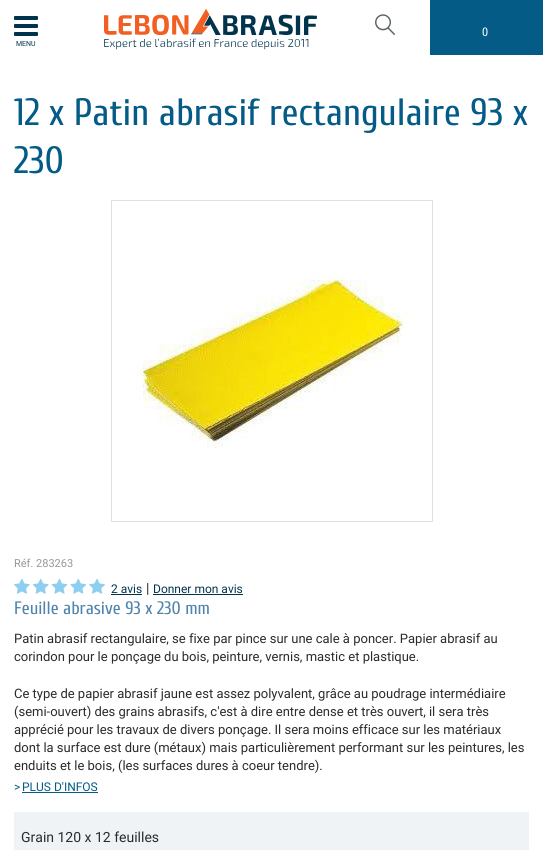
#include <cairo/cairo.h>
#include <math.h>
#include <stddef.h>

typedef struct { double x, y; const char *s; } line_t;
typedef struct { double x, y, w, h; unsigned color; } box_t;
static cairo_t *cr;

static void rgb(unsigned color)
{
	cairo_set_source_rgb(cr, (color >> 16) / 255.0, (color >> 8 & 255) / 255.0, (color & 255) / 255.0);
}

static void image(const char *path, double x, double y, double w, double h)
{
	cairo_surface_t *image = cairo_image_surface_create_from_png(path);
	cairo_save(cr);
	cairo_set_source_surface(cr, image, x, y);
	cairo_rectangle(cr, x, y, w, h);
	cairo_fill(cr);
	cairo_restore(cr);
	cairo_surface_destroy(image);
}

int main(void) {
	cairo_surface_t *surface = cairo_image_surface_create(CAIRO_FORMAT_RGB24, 543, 850);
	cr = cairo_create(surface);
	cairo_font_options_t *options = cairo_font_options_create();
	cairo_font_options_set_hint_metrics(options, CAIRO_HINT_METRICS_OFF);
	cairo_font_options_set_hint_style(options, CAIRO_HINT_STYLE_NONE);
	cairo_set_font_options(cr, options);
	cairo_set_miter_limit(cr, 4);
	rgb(0xffffff);
	cairo_paint(cr);
	image("img/1.png", 104, 8, 213, 42);
	image("img/2.png", 375, 14, 20, 21);
	rgb(0x035b86);
	cairo_rectangle(cr, 430, 0, 113, 55);
	cairo_fill(cr);
	image("img/3.png", 14, 16, 24, 20);
	cairo_rectangle(cr, 111.5, 200.5, 321, 321);
	rgb(0xe0e0e0);
	cairo_set_line_width(cr, 1);
	cairo_stroke(cr);
	image("img/4.png", 136, 265, 276, 184);
	image("img/5.png", 14, 578, 91, 16);
	{
		static const box_t items[] = {
			{111, 594, 31, 1, 0x00344d},
			{153, 594, 90, 1, 0x00344d},
			{22, 792, 76, 1, 0x035b86},
			{14, 812, 515, 38, 0xeff3f5},
		};
		for (size_t i = 0; i < sizeof items / sizeof *items; i++) {
			rgb(items[i].color);
			cairo_rectangle(cr, items[i].x, items[i].y, items[i].w, items[i].h);
			cairo_fill(cr);
		}
	}
	cairo_select_font_face(cr, "Cuprum", CAIRO_FONT_SLANT_NORMAL, CAIRO_FONT_WEIGHT_NORMAL);
	cairo_set_font_size(cr, 12);
	rgb(0xffffff);
	cairo_move_to(cr, 482, 36);
	cairo_show_text(cr, "0");
	cairo_select_font_face(cr, "Roboto", CAIRO_FONT_SLANT_NORMAL, CAIRO_FONT_WEIGHT_NORMAL);
	cairo_set_font_size(cr, 7);
	rgb(0x00344d);
	cairo_move_to(cr, 16, 46);
	cairo_show_text(cr, "MENU");
	cairo_select_font_face(cr, "Cuprum", CAIRO_FONT_SLANT_NORMAL, CAIRO_FONT_WEIGHT_NORMAL);
	cairo_set_font_size(cr, 38);
	rgb(0x035b86);
	cairo_move_to(cr, 14, 125);
	cairo_show_text(cr, "12 x Patin abrasif rectangulaire 93 x");
	cairo_move_to(cr, 14, 173);
	cairo_show_text(cr, "230");
	cairo_select_font_face(cr, "Roboto", CAIRO_FONT_SLANT_NORMAL, CAIRO_FONT_WEIGHT_NORMAL);
	cairo_set_font_size(cr, 11);
	rgb(0x9b9597);
	cairo_move_to(cr, 14, 567);
	cairo_show_text(cr, "Réf. 283263");
	cairo_set_font_size(cr, 12);
	rgb(0x00344d);
	cairo_move_to(cr, 111, 593);
	cairo_show_text(cr, "2 avis");
	cairo_set_font_size(cr, 14);
	rgb(0x2a2b2c);
	cairo_move_to(cr, 146, 593);
	cairo_show_text(cr, "|");
	cairo_set_font_size(cr, 12);
	rgb(0x00344d);
	cairo_move_to(cr, 153, 593);
	cairo_show_text(cr, "Donner mon avis");
	cairo_select_font_face(cr, "Cuprum", CAIRO_FONT_SLANT_NORMAL, CAIRO_FONT_WEIGHT_NORMAL);
	cairo_set_font_size(cr, 18);
	rgb(0x4e83ab);
	cairo_move_to(cr, 14, 614);
	cairo_show_text(cr, "Feuille abrasive 93 x 230 mm");
	cairo_select_font_face(cr, "Roboto", CAIRO_FONT_SLANT_NORMAL, CAIRO_FONT_WEIGHT_NORMAL);
	cairo_set_font_size(cr, 13);
	rgb(0x2a2b2c);
	{
		static const line_t items[] = {
			{14, 643, "Patin abrasif rectangulaire, se fixe par pince sur une cale à poncer. Papier abrasif au"},
			{14, 661, "corindon pour le ponçage du bois, peinture, vernis, mastic et plastique."},
			{14, 698, "Ce type de papier abrasif jaune est assez polyvalent, grâce au poudrage intermédiaire"},
			{14, 716, "(semi-ouvert) des grains abrasifs, c'est à dire entre dense et très ouvert, il sera très"},
			{14, 734, "apprécié pour les travaux de divers ponçage. Il sera moins efficace sur les matériaux"},
			{14, 752, "dont la surface est dure (métaux) mais particulièrement performant sur les peintures, les"},
			{14, 770, "enduits et le bois, (les surfaces dures à coeur tendre)."},
		};
		for (size_t i = 0; i < sizeof items / sizeof *items; i++) {
			cairo_move_to(cr, items[i].x, items[i].y);
			cairo_show_text(cr, items[i].s);
		}
	}
	cairo_set_font_size(cr, 12);
	rgb(0x035b86);
	cairo_move_to(cr, 14, 791);
	cairo_show_text(cr, ">");
	cairo_move_to(cr, 22, 791);
	cairo_show_text(cr, "PLUS D'INFOS");
	cairo_set_font_size(cr, 14);
	rgb(0x2a2b2c);
	cairo_move_to(cr, 21, 842);
	cairo_show_text(cr, "Grain 120 x 12 feuilles");
	cairo_surface_write_to_png(surface, "page.png");
	cairo_font_options_destroy(options);
	cairo_destroy(cr);
	cairo_surface_destroy(surface);
	return 0;
}
